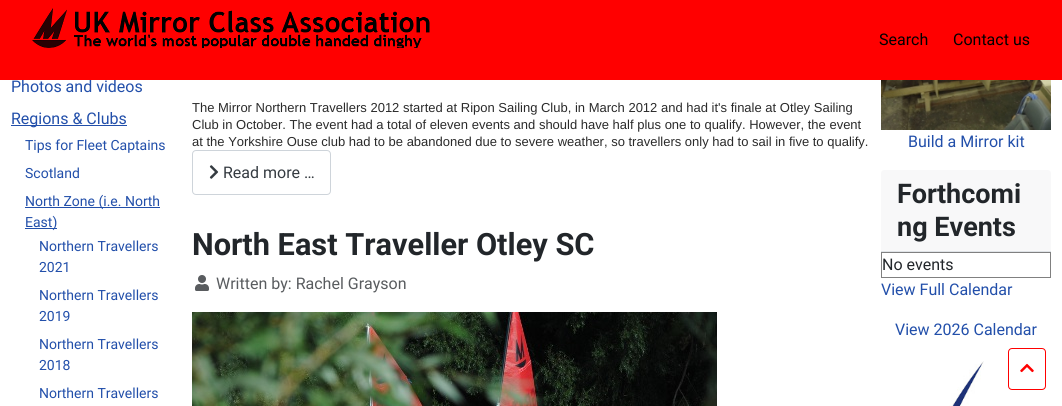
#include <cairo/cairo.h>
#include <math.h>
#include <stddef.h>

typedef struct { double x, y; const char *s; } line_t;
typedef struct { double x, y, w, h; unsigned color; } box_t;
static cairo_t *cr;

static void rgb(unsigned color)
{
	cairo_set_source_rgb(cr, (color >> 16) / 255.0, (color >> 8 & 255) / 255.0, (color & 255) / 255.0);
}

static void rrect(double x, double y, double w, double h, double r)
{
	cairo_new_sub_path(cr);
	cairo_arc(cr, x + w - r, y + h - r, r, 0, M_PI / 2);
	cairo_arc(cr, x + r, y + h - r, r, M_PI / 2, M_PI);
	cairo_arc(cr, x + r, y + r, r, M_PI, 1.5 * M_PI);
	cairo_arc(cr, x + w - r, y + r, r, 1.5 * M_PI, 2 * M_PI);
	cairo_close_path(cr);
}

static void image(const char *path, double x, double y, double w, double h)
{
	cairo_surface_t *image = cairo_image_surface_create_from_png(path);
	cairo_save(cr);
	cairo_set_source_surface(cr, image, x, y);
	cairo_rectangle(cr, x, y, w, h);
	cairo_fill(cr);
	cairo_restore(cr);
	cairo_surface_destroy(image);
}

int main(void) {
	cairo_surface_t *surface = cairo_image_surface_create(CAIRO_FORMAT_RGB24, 1062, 406);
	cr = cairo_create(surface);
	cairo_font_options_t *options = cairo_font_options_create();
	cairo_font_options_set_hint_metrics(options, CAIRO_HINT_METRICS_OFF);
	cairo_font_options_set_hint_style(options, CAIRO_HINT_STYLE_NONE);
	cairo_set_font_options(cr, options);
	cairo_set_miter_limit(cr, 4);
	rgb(0xffffff);
	cairo_paint(cr);
	rgb(0xff0000);
	cairo_rectangle(cr, 0, 0, 1062, 80);
	cairo_fill(cr);
	image("img/1.png", 32, 8, 398, 40);
	{
		static const box_t items[] = {
			{11, 125, 116, 1, 0x224faa},
			{25, 207, 135, 1, 0x224faa},
			{25, 228, 32, 1, 0x224faa},
		};
		for (size_t i = 0; i < sizeof items / sizeof *items; i++) {
			rgb(items[i].color);
			cairo_rectangle(cr, items[i].x, items[i].y, items[i].w, items[i].h);
			cairo_fill(cr);
		}
	}
	rrect(192.5, 150.5, 138, 44, 3.5);
	rgb(0xced4da);
	cairo_set_line_width(cr, 1);
	cairo_stroke(cr);
	image("img/2.png", 209, 165, 10, 14);
	image("img/3.png", 195, 275, 14, 16);
	image("img/4.png", 192, 312, 525, 94);
	image("img/5.png", 881, 80, 170, 50);
	rgb(0xf8f8f9);
	cairo_new_path(cr);
	cairo_move_to(cr, 884, 170);
	cairo_line_to(cr, 1048, 170);
	cairo_curve_to(cr, 1049.5, 170, 1051, 171.5, 1051, 173);
	cairo_line_to(cr, 1051, 252);
	cairo_line_to(cr, 881, 252);
	cairo_line_to(cr, 881, 173);
	cairo_curve_to(cr, 881, 171.5, 882.5, 170, 884, 170);
	cairo_close_path(cr);
	cairo_fill(cr);
	{
		static const box_t items[] = {
			{881, 251, 170, 1, 0xdfe3e7},
			{881, 252, 170, 1, 0x808080},
			{1050, 252, 1, 26, 0x808080},
			{881, 277, 170, 1, 0x808080},
			{881, 252, 1, 26, 0x808080},
		};
		for (size_t i = 0; i < sizeof items / sizeof *items; i++) {
			rgb(items[i].color);
			cairo_rectangle(cr, items[i].x, items[i].y, items[i].w, items[i].h);
			cairo_fill(cr);
		}
	}
	image("img/6.png", 949, 361, 35, 45);
	rrect(1008.5, 348.5, 37, 41, 3.5);
	rgb(0xff0000);
	cairo_stroke(cr);
	image("img/7.png", 1020, 363, 14, 10);
	cairo_select_font_face(cr, "Roboto", CAIRO_FONT_SLANT_NORMAL, CAIRO_FONT_WEIGHT_NORMAL);
	cairo_set_font_size(cr, 16);
	rgb(0x000000);
	cairo_move_to(cr, 879, 45);
	cairo_show_text(cr, "Search");
	cairo_move_to(cr, 953, 45);
	cairo_show_text(cr, "Contact us");
	rgb(0x224faa);
	cairo_move_to(cr, 11, 92);
	cairo_show_text(cr, "Photos and videos");
	cairo_move_to(cr, 11, 124);
	cairo_show_text(cr, "Regions & Clubs");
	cairo_set_font_size(cr, 14);
	{
		static const line_t items[] = {
			{25, 150, "Tips for Fleet Captains"},
			{25, 178, "Scotland"},
			{25, 206, "North Zone (i.e. North"},
			{25, 227, "East)"},
			{39, 251, "Northern Travellers"},
			{39, 272, "2021"},
			{39, 300, "Northern Travellers"},
			{39, 321, "2019"},
			{39, 349, "Northern Travellers"},
			{39, 370, "2018"},
			{39, 398, "Northern Travellers"},
		};
		for (size_t i = 0; i < sizeof items / sizeof *items; i++) {
			cairo_move_to(cr, items[i].x, items[i].y);
			cairo_show_text(cr, items[i].s);
		}
	}
	cairo_select_font_face(cr, "Liberation Sans", CAIRO_FONT_SLANT_NORMAL, CAIRO_FONT_WEIGHT_NORMAL);
	cairo_set_font_size(cr, 13);
	rgb(0x2a2a2a);
	{
		static const line_t items[] = {
			{192, 112, "The Mirror Northern Travellers 2012 started at Ripon Sailing Club, in March 2012 and had it's finale at Otley Sailing"},
			{192, 129, "Club in October. The event had a total of eleven events and should have half plus one to qualify. However, the event"},
			{192, 146, "at the Yorkshire Ouse club had to be abandoned due to severe weather, so travellers only had to sail in five to qualify."},
		};
		for (size_t i = 0; i < sizeof items / sizeof *items; i++) {
			cairo_move_to(cr, items[i].x, items[i].y);
			cairo_show_text(cr, items[i].s);
		}
	}
	cairo_select_font_face(cr, "Roboto", CAIRO_FONT_SLANT_NORMAL, CAIRO_FONT_WEIGHT_NORMAL);
	cairo_set_font_size(cr, 16);
	rgb(0x353b41);
	cairo_move_to(cr, 223, 178);
	cairo_show_text(cr, "Read more …");
	cairo_select_font_face(cr, "Roboto", CAIRO_FONT_SLANT_NORMAL, CAIRO_FONT_WEIGHT_BOLD);
	cairo_set_font_size(cr, 30.75);
	rgb(0x22262a);
	cairo_move_to(cr, 192, 255);
	cairo_show_text(cr, "North East Traveller Otley SC");
	cairo_select_font_face(cr, "Roboto", CAIRO_FONT_SLANT_NORMAL, CAIRO_FONT_WEIGHT_NORMAL);
	cairo_set_font_size(cr, 16);
	rgb(0x595c5f);
	cairo_move_to(cr, 216, 289);
	cairo_show_text(cr, "Written by: Rachel Grayson");
	rgb(0x224faa);
	cairo_move_to(cr, 908, 147);
	cairo_show_text(cr, "Build a Mirror kit");
	cairo_select_font_face(cr, "Roboto", CAIRO_FONT_SLANT_NORMAL, CAIRO_FONT_WEIGHT_BOLD);
	cairo_set_font_size(cr, 27);
	rgb(0x22262a);
	cairo_move_to(cr, 897, 203);
	cairo_show_text(cr, "Forthcomi");
	cairo_move_to(cr, 897, 236);
	cairo_show_text(cr, "ng Events");
	cairo_select_font_face(cr, "Roboto", CAIRO_FONT_SLANT_NORMAL, CAIRO_FONT_WEIGHT_NORMAL);
	cairo_set_font_size(cr, 16);
	cairo_move_to(cr, 882, 270);
	cairo_show_text(cr, "No events");
	rgb(0x224faa);
	cairo_move_to(cr, 881, 295);
	cairo_show_text(cr, "View Full Calendar");
	cairo_move_to(cr, 895, 335);
	cairo_show_text(cr, "View 2026 Calendar");
	cairo_surface_write_to_png(surface, "page.png");
	cairo_font_options_destroy(options);
	cairo_destroy(cr);
	cairo_surface_destroy(surface);
	return 0;
}
